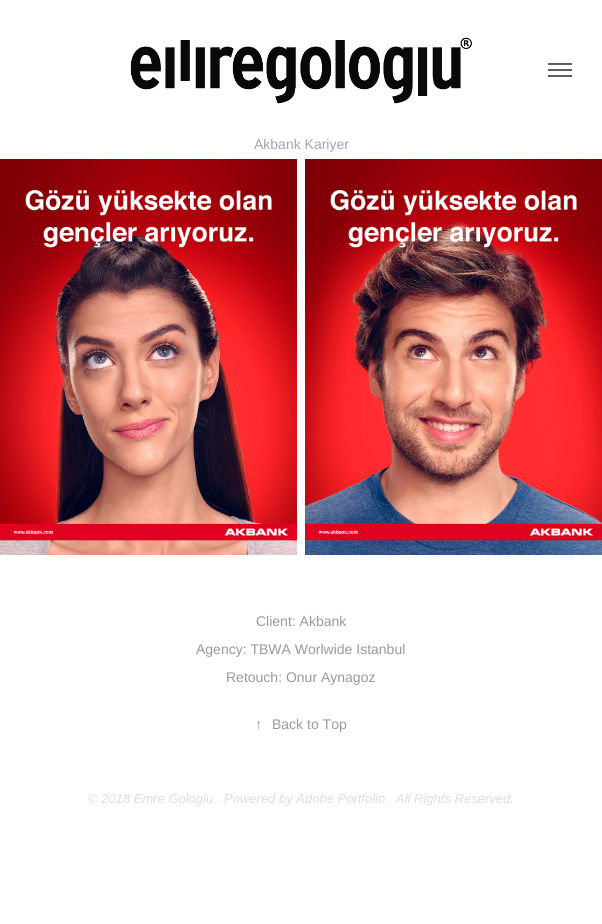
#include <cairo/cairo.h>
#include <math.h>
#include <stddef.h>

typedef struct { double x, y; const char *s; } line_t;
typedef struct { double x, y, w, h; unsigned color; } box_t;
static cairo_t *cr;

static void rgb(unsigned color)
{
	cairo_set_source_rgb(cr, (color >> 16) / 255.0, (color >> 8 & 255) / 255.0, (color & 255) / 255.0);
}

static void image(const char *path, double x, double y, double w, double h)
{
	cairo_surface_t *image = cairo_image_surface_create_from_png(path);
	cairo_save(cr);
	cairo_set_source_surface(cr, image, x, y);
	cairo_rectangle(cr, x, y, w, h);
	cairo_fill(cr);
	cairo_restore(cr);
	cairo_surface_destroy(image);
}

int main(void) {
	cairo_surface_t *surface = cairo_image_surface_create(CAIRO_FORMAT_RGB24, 602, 924);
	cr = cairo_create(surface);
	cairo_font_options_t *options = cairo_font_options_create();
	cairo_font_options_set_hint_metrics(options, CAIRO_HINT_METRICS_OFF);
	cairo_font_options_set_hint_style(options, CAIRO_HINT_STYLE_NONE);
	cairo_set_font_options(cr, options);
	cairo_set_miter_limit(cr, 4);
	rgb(0xffffff);
	cairo_paint(cr);
	image("img/1.png", 130, 37, 342, 67);
	{
		static const box_t items[] = {
			{548, 63, 24, 2, 0x606060},
			{548, 69, 24, 2, 0x606060},
			{548, 75, 24, 2, 0x606060},
		};
		for (size_t i = 0; i < sizeof items / sizeof *items; i++) {
			rgb(items[i].color);
			cairo_rectangle(cr, items[i].x, items[i].y, items[i].w, items[i].h);
			cairo_fill(cr);
		}
	}
	image("img/2.png", 0, 159, 297, 396);
	image("img/3.png", 305, 159, 297, 396);
	cairo_select_font_face(cr, "Liberation Sans", CAIRO_FONT_SLANT_NORMAL, CAIRO_FONT_WEIGHT_NORMAL);
	cairo_set_font_size(cr, 14);
	rgb(0xa5a5a5);
	cairo_move_to(cr, 254, 149);
	cairo_show_text(cr, "Akbank Kariyer");
	rgb(0x999999);
	{
		static const line_t items[] = {
			{256, 626, "Client: Akbank"},
			{196, 654, "Agency: TBWA Worlwide Istanbul"},
			{226, 682, "Retouch: Onur Aynagoz"},
			{255, 729, "↑"},
			{272, 729, "Back to Top"},
		};
		for (size_t i = 0; i < sizeof items / sizeof *items; i++) {
			cairo_move_to(cr, items[i].x, items[i].y);
			cairo_show_text(cr, items[i].s);
		}
	}
	cairo_select_font_face(cr, "Liberation Sans", CAIRO_FONT_SLANT_ITALIC, CAIRO_FONT_WEIGHT_NORMAL);
	cairo_set_font_size(cr, 13);
	rgb(0xdddddd);
	cairo_move_to(cr, 88, 803);
	cairo_show_text(cr, "© 2018 Emre Gologlu . Powered by Adobe Portfolio . All Rights Reserved.");
	cairo_surface_write_to_png(surface, "page.png");
	cairo_font_options_destroy(options);
	cairo_destroy(cr);
	cairo_surface_destroy(surface);
	return 0;
}
